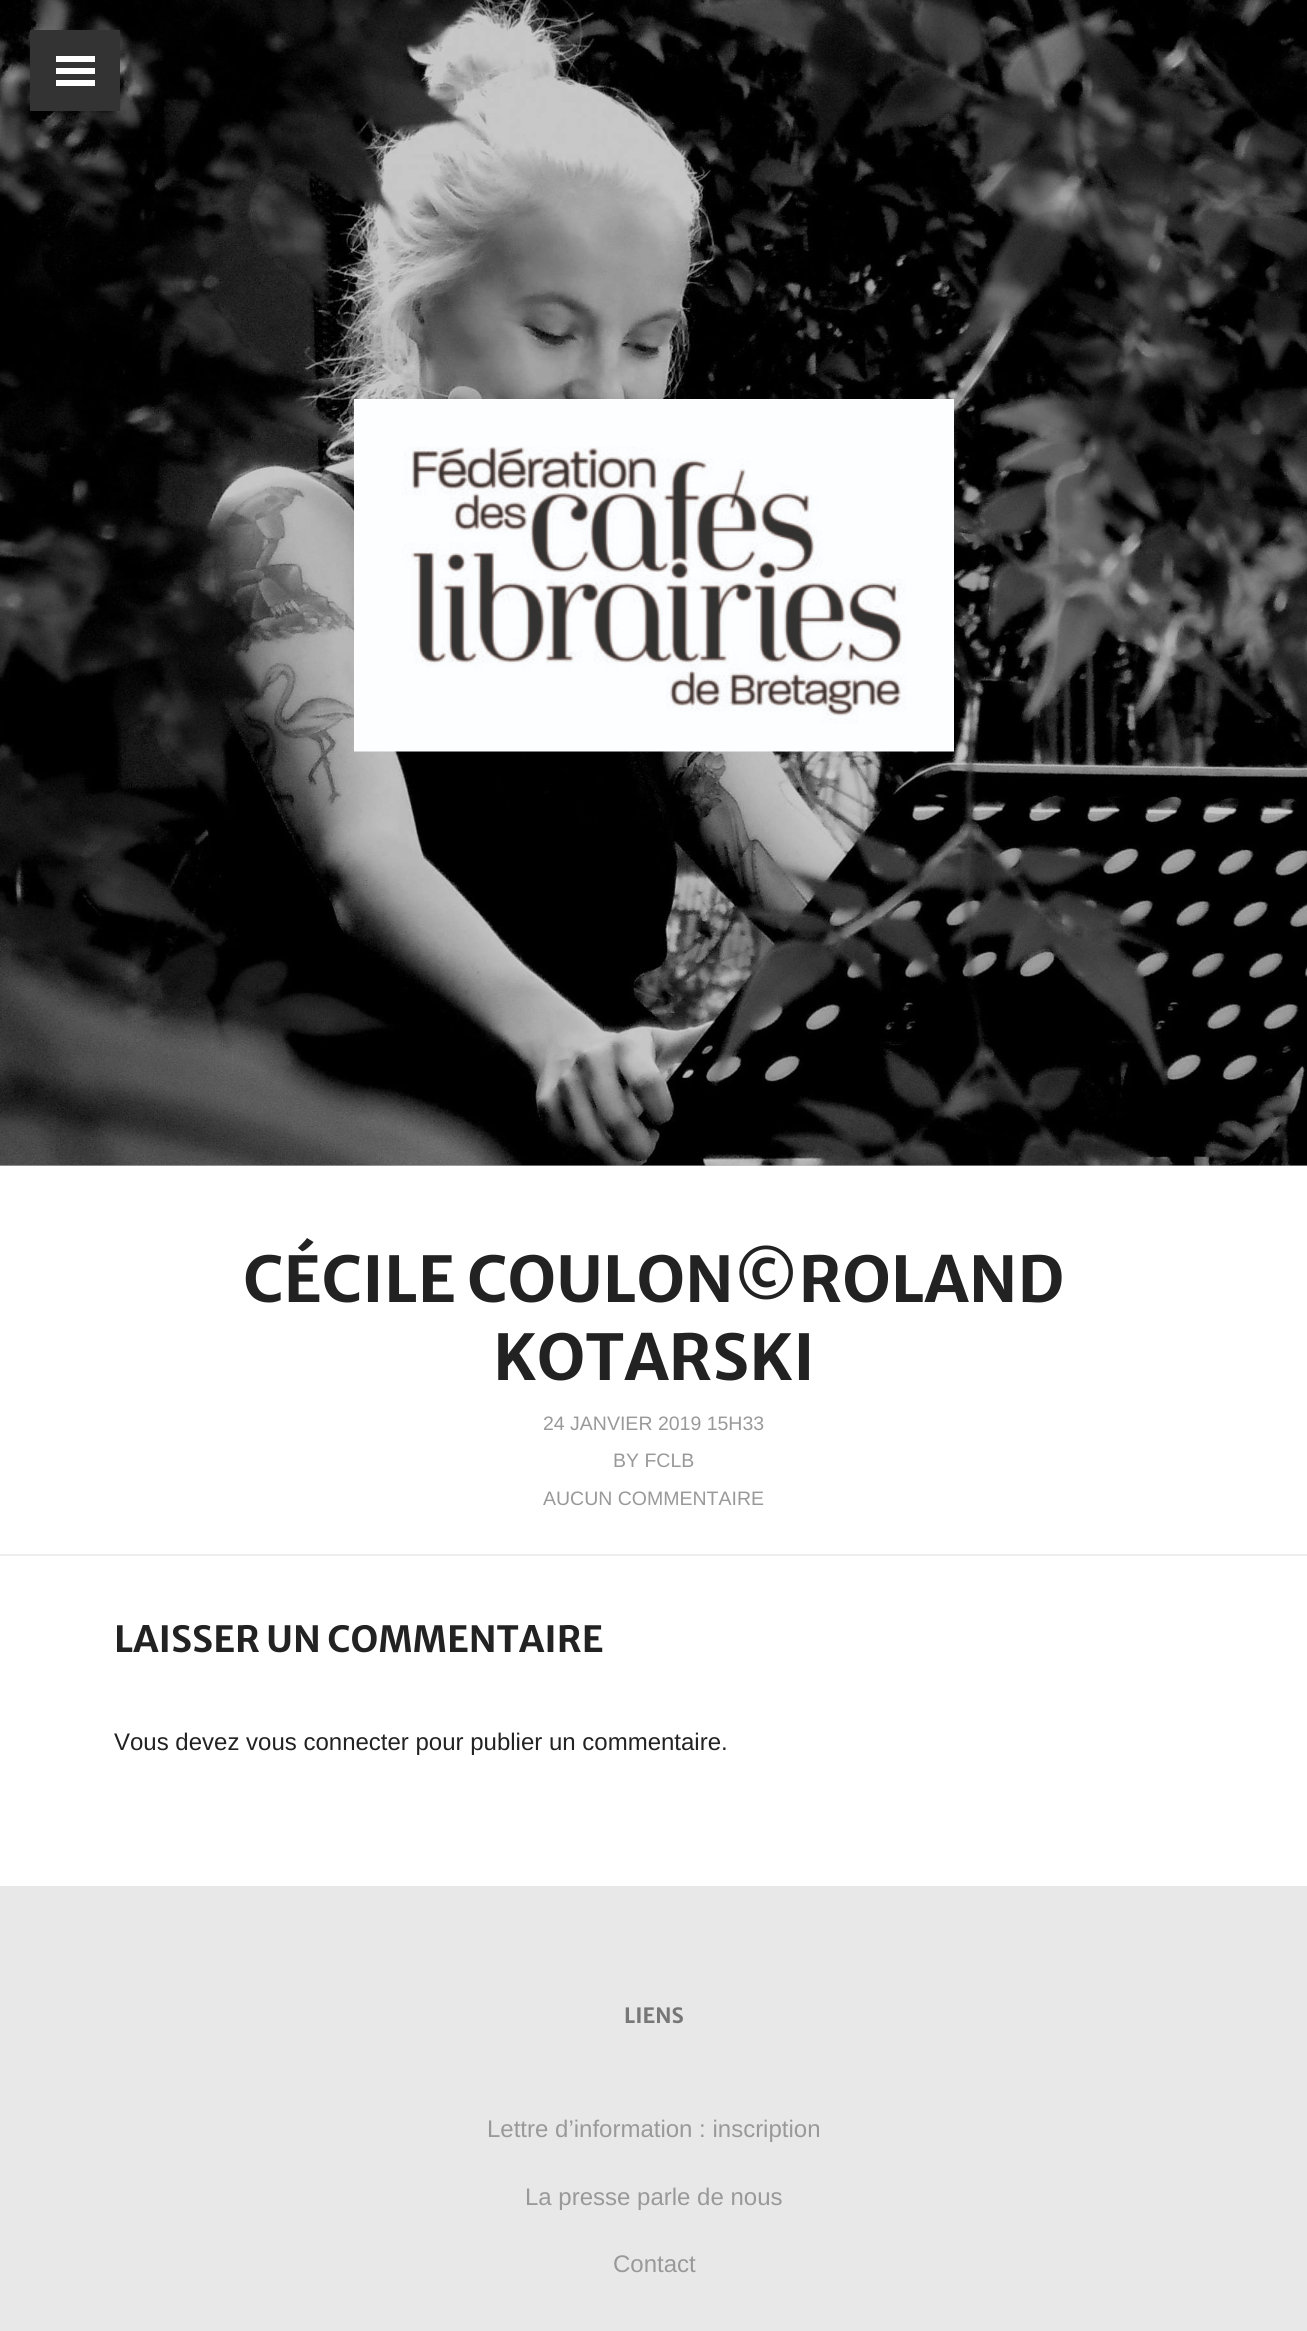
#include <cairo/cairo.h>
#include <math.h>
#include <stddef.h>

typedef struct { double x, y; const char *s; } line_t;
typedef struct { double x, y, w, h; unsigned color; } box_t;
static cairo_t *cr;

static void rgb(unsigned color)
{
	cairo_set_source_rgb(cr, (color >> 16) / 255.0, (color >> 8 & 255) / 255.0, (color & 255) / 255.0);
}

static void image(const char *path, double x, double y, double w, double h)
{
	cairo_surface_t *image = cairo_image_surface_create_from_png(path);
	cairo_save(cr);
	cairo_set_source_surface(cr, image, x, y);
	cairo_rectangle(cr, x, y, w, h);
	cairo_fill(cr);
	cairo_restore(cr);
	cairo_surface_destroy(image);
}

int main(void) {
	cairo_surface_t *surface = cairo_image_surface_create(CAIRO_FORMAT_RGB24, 1307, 2331);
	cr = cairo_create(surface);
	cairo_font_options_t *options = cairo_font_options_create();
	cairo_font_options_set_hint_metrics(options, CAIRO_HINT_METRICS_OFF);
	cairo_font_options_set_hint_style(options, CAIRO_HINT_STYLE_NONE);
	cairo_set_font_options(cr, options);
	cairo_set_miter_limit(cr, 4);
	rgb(0xffffff);
	cairo_paint(cr);
	rgb(0xcccccc);
	cairo_rectangle(cr, 0, 1165, 1307, 1);
	cairo_fill(cr);
	image("img/2.png", 0, 0, 1307, 1166);
	{
		static const box_t items[] = {
			{30, 30, 90, 81, 0x333333},
			{56, 56, 39, 6, 0xffffff},
			{56, 68, 39, 6, 0xffffff},
			{56, 80, 39, 6, 0xffffff},
		};
		for (size_t i = 0; i < sizeof items / sizeof *items; i++) {
			rgb(items[i].color);
			cairo_rectangle(cr, items[i].x, items[i].y, items[i].w, items[i].h);
			cairo_fill(cr);
		}
	}
	image("img/1.png", 354, 399, 600, 353);
	rgb(0xeeeeee);
	cairo_rectangle(cr, 0, 1554, 1307, 2);
	cairo_fill(cr);
	rgb(0xe8e8e8);
	cairo_rectangle(cr, 0, 1886, 1307, 445);
	cairo_fill(cr);
	cairo_select_font_face(cr, "Merriweather Sans", CAIRO_FONT_SLANT_NORMAL, CAIRO_FONT_WEIGHT_BOLD);
	cairo_set_font_size(cr, 63);
	rgb(0x222222);
	cairo_move_to(cr, 243, 1302);
	cairo_show_text(cr, "CÉCILE COULON©ROLAND");
	cairo_move_to(cr, 493, 1380);
	cairo_show_text(cr, "KOTARSKI");
	cairo_select_font_face(cr, "Liberation Sans", CAIRO_FONT_SLANT_NORMAL, CAIRO_FONT_WEIGHT_NORMAL);
	cairo_set_font_size(cr, 19.5);
	rgb(0x999999);
	{
		static const line_t items[] = {
			{543, 1430, "24 JANVIER 2019 15H33"},
			{613, 1467, "BY FCLB"},
			{543, 1505, "AUCUN COMMENTAIRE"},
		};
		for (size_t i = 0; i < sizeof items / sizeof *items; i++) {
			cairo_move_to(cr, items[i].x, items[i].y);
			cairo_show_text(cr, items[i].s);
		}
	}
	cairo_select_font_face(cr, "Merriweather Sans", CAIRO_FONT_SLANT_NORMAL, CAIRO_FONT_WEIGHT_BOLD);
	cairo_set_font_size(cr, 36);
	rgb(0x222222);
	cairo_move_to(cr, 114, 1652);
	cairo_show_text(cr, "LAISSER UN COMMENTAIRE");
	cairo_select_font_face(cr, "Liberation Sans", CAIRO_FONT_SLANT_NORMAL, CAIRO_FONT_WEIGHT_NORMAL);
	cairo_set_font_size(cr, 24);
	cairo_move_to(cr, 114, 1750);
	cairo_show_text(cr, "Vous devez vous connecter pour publier un commentaire.");
	cairo_select_font_face(cr, "Merriweather Sans", CAIRO_FONT_SLANT_NORMAL, CAIRO_FONT_WEIGHT_BOLD);
	cairo_set_font_size(cr, 21);
	rgb(0x777777);
	cairo_move_to(cr, 624, 2023);
	cairo_show_text(cr, "LIENS");
	cairo_select_font_face(cr, "Liberation Sans", CAIRO_FONT_SLANT_NORMAL, CAIRO_FONT_WEIGHT_NORMAL);
	cairo_set_font_size(cr, 24);
	rgb(0x999999);
	{
		static const line_t items[] = {
			{487, 2137, "Lettre d’information : inscription"},
			{525, 2205, "La presse parle de nous"},
			{613, 2272, "Contact"},
		};
		for (size_t i = 0; i < sizeof items / sizeof *items; i++) {
			cairo_move_to(cr, items[i].x, items[i].y);
			cairo_show_text(cr, items[i].s);
		}
	}
	cairo_surface_write_to_png(surface, "page.png");
	cairo_font_options_destroy(options);
	cairo_destroy(cr);
	cairo_surface_destroy(surface);
	return 0;
}
